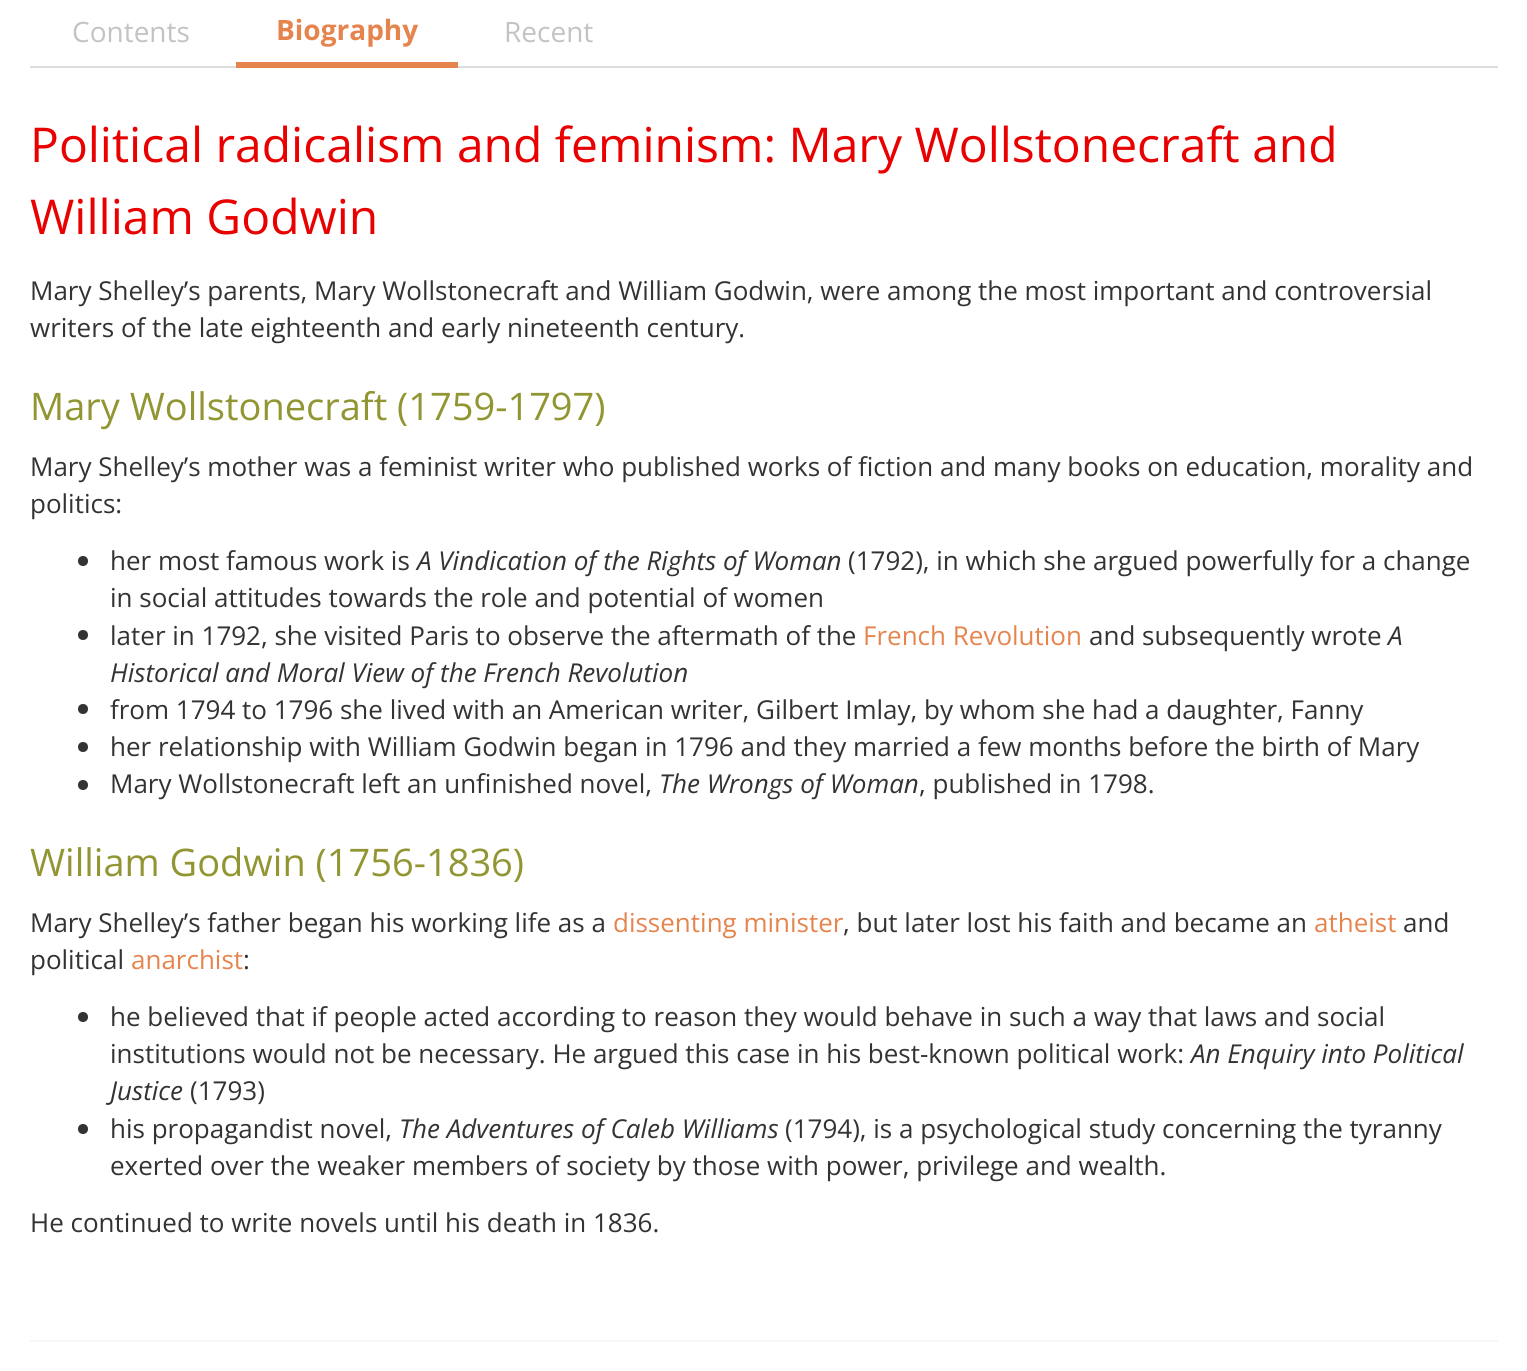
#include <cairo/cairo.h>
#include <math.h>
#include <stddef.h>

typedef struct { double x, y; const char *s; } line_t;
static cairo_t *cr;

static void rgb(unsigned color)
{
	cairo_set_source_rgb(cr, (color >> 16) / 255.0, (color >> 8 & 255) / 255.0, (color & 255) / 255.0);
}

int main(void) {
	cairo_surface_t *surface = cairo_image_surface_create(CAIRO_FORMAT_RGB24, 1527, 1371);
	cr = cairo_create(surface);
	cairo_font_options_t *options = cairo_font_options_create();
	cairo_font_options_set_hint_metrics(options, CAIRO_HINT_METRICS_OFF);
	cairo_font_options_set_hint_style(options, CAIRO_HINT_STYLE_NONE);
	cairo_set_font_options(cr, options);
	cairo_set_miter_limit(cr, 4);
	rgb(0xffffff);
	cairo_paint(cr);
	rgb(0xdddddd);
	cairo_rectangle(cr, 30, 66, 1468, 2);
	cairo_fill(cr);
	rgb(0xffffff);
	cairo_new_path(cr);
	cairo_move_to(cr, 244, -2);
	cairo_line_to(cr, 450, -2);
	cairo_curve_to(cr, 454.5, -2, 458, 1.5, 458, 6);
	cairo_line_to(cr, 458, 68);
	cairo_line_to(cr, 236, 68);
	cairo_line_to(cr, 236, 6);
	cairo_curve_to(cr, 236, 1.5, 239.5, -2, 244, -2);
	cairo_close_path(cr);
	cairo_fill(cr);
	rgb(0xe6844e);
	cairo_rectangle(cr, 236, 62, 222, 6);
	cairo_fill(cr);
	rgb(0x333333);
	cairo_arc(cr, 83, 561, 5, 0, 2 * M_PI);
	cairo_fill(cr);
	cairo_arc(cr, 83, 635, 5, 0, 2 * M_PI);
	cairo_fill(cr);
	cairo_arc(cr, 83, 709, 5, 0, 2 * M_PI);
	cairo_fill(cr);
	cairo_arc(cr, 83, 747, 5, 0, 2 * M_PI);
	cairo_fill(cr);
	cairo_arc(cr, 83, 785, 5, 0, 2 * M_PI);
	cairo_fill(cr);
	cairo_arc(cr, 83, 1017, 5, 0, 2 * M_PI);
	cairo_fill(cr);
	cairo_arc(cr, 83, 1129, 5, 0, 2 * M_PI);
	cairo_fill(cr);
	rgb(0xf7f7f7);
	cairo_rectangle(cr, 30, 1340, 1468, 2);
	cairo_fill(cr);
	cairo_select_font_face(cr, "Open Sans", CAIRO_FONT_SLANT_NORMAL, CAIRO_FONT_WEIGHT_NORMAL);
	cairo_set_font_size(cr, 28);
	rgb(0xc3c3c3);
	cairo_move_to(cr, 72, 42);
	cairo_show_text(cr, "Contents");
	cairo_select_font_face(cr, "Open Sans", CAIRO_FONT_SLANT_NORMAL, CAIRO_FONT_WEIGHT_BOLD);
	rgb(0xe6844e);
	cairo_move_to(cr, 276, 40);
	cairo_show_text(cr, "Biography");
	cairo_select_font_face(cr, "Open Sans", CAIRO_FONT_SLANT_NORMAL, CAIRO_FONT_WEIGHT_NORMAL);
	rgb(0xc3c3c3);
	cairo_move_to(cr, 504, 42);
	cairo_show_text(cr, "Recent");
	cairo_set_font_size(cr, 48);
	rgb(0xe90000);
	cairo_move_to(cr, 30, 162);
	cairo_show_text(cr, "Political radicalism and feminism: Mary Wollstonecraft and");
	cairo_move_to(cr, 30, 234);
	cairo_show_text(cr, "William Godwin");
	cairo_set_font_size(cr, 26);
	rgb(0x333333);
	cairo_move_to(cr, 30, 300);
	cairo_show_text(cr, "Mary Shelley’s parents, Mary Wollstonecraft and William Godwin, were among the most important and controversial");
	cairo_move_to(cr, 30, 337);
	cairo_show_text(cr, "writers of the late eighteenth and early nineteenth century.");
	cairo_set_font_size(cr, 38);
	rgb(0x919633);
	cairo_move_to(cr, 30, 420);
	cairo_show_text(cr, "Mary Wollstonecraft (1759-1797)");
	cairo_set_font_size(cr, 26);
	rgb(0x333333);
	{
		static const line_t items[] = {
			{30, 476, "Mary Shelley’s mother was a feminist writer who published works of fiction and many books on education, morality and"},
			{30, 513, "politics:"},
			{110, 570, "her most famous work is"},
		};
		for (size_t i = 0; i < sizeof items / sizeof *items; i++) {
			cairo_move_to(cr, items[i].x, items[i].y);
			cairo_show_text(cr, items[i].s);
		}
	}
	cairo_select_font_face(cr, "Open Sans", CAIRO_FONT_SLANT_ITALIC, CAIRO_FONT_WEIGHT_NORMAL);
	cairo_move_to(cr, 417, 570);
	cairo_show_text(cr, "A Vindication of the Rights of Woman");
	cairo_select_font_face(cr, "Open Sans", CAIRO_FONT_SLANT_NORMAL, CAIRO_FONT_WEIGHT_NORMAL);
	{
		static const line_t items[] = {
			{848, 570, "(1792), in which she argued powerfully for a change"},
			{110, 607, "in social attitudes towards the role and potential of women"},
			{110, 645, "later in 1792, she visited Paris to observe the aftermath of the"},
		};
		for (size_t i = 0; i < sizeof items / sizeof *items; i++) {
			cairo_move_to(cr, items[i].x, items[i].y);
			cairo_show_text(cr, items[i].s);
		}
	}
	rgb(0xe6844e);
	cairo_move_to(cr, 863, 645);
	cairo_show_text(cr, "French Revolution");
	rgb(0x333333);
	cairo_move_to(cr, 1089, 645);
	cairo_show_text(cr, "and subsequently wrote");
	cairo_select_font_face(cr, "Open Sans", CAIRO_FONT_SLANT_ITALIC, CAIRO_FONT_WEIGHT_NORMAL);
	cairo_move_to(cr, 1388, 645);
	cairo_show_text(cr, "A");
	cairo_move_to(cr, 110, 682);
	cairo_show_text(cr, "Historical and Moral View of the French Revolution");
	cairo_select_font_face(cr, "Open Sans", CAIRO_FONT_SLANT_NORMAL, CAIRO_FONT_WEIGHT_NORMAL);
	{
		static const line_t items[] = {
			{110, 719, "from 1794 to 1796 she lived with an American writer, Gilbert Imlay, by whom she had a daughter, Fanny"},
			{110, 756, "her relationship with William Godwin began in 1796 and they married a few months before the birth of Mary"},
			{110, 793, "Mary Wollstonecraft left an unfinished novel,"},
		};
		for (size_t i = 0; i < sizeof items / sizeof *items; i++) {
			cairo_move_to(cr, items[i].x, items[i].y);
			cairo_show_text(cr, items[i].s);
		}
	}
	cairo_select_font_face(cr, "Open Sans", CAIRO_FONT_SLANT_ITALIC, CAIRO_FONT_WEIGHT_NORMAL);
	cairo_move_to(cr, 659, 793);
	cairo_show_text(cr, "The Wrongs of Woman");
	cairo_select_font_face(cr, "Open Sans", CAIRO_FONT_SLANT_NORMAL, CAIRO_FONT_WEIGHT_NORMAL);
	cairo_move_to(cr, 919, 793);
	cairo_show_text(cr, ", published in 1798.");
	cairo_set_font_size(cr, 38);
	rgb(0x919633);
	cairo_move_to(cr, 30, 876);
	cairo_show_text(cr, "William Godwin (1756-1836)");
	cairo_set_font_size(cr, 26);
	rgb(0x333333);
	cairo_move_to(cr, 30, 932);
	cairo_show_text(cr, "Mary Shelley’s father began his working life as a");
	rgb(0xe6844e);
	cairo_move_to(cr, 613, 932);
	cairo_show_text(cr, "dissenting minister");
	rgb(0x333333);
	cairo_move_to(cr, 843, 932);
	cairo_show_text(cr, ", but later lost his faith and became an");
	rgb(0xe6844e);
	cairo_move_to(cr, 1314, 932);
	cairo_show_text(cr, "atheist");
	rgb(0x333333);
	cairo_move_to(cr, 1403, 932);
	cairo_show_text(cr, "and");
	cairo_move_to(cr, 30, 969);
	cairo_show_text(cr, "political");
	rgb(0xe6844e);
	cairo_move_to(cr, 131, 969);
	cairo_show_text(cr, "anarchist");
	rgb(0x333333);
	{
		static const line_t items[] = {
			{243, 969, ":"},
			{110, 1026, "he believed that if people acted according to reason they would behave in such a way that laws and social"},
			{110, 1063, "institutions would not be necessary. He argued this case in his best-known political work:"},
		};
		for (size_t i = 0; i < sizeof items / sizeof *items; i++) {
			cairo_move_to(cr, items[i].x, items[i].y);
			cairo_show_text(cr, items[i].s);
		}
	}
	cairo_select_font_face(cr, "Open Sans", CAIRO_FONT_SLANT_ITALIC, CAIRO_FONT_WEIGHT_NORMAL);
	cairo_move_to(cr, 1191, 1063);
	cairo_show_text(cr, "An Enquiry into Political");
	cairo_move_to(cr, 110, 1100);
	cairo_show_text(cr, "Justice");
	cairo_select_font_face(cr, "Open Sans", CAIRO_FONT_SLANT_NORMAL, CAIRO_FONT_WEIGHT_NORMAL);
	cairo_move_to(cr, 190, 1100);
	cairo_show_text(cr, "(1793)");
	cairo_move_to(cr, 110, 1138);
	cairo_show_text(cr, "his propagandist novel,");
	cairo_select_font_face(cr, "Open Sans", CAIRO_FONT_SLANT_ITALIC, CAIRO_FONT_WEIGHT_NORMAL);
	cairo_move_to(cr, 399, 1138);
	cairo_show_text(cr, "The Adventures of Caleb Williams");
	cairo_select_font_face(cr, "Open Sans", CAIRO_FONT_SLANT_NORMAL, CAIRO_FONT_WEIGHT_NORMAL);
	{
		static const line_t items[] = {
			{785, 1138, "(1794), is a psychological study concerning the tyranny"},
			{110, 1175, "exerted over the weaker members of society by those with power, privilege and wealth."},
			{30, 1232, "He continued to write novels until his death in 1836."},
		};
		for (size_t i = 0; i < sizeof items / sizeof *items; i++) {
			cairo_move_to(cr, items[i].x, items[i].y);
			cairo_show_text(cr, items[i].s);
		}
	}
	cairo_surface_write_to_png(surface, "page.png");
	cairo_font_options_destroy(options);
	cairo_destroy(cr);
	cairo_surface_destroy(surface);
	return 0;
}
